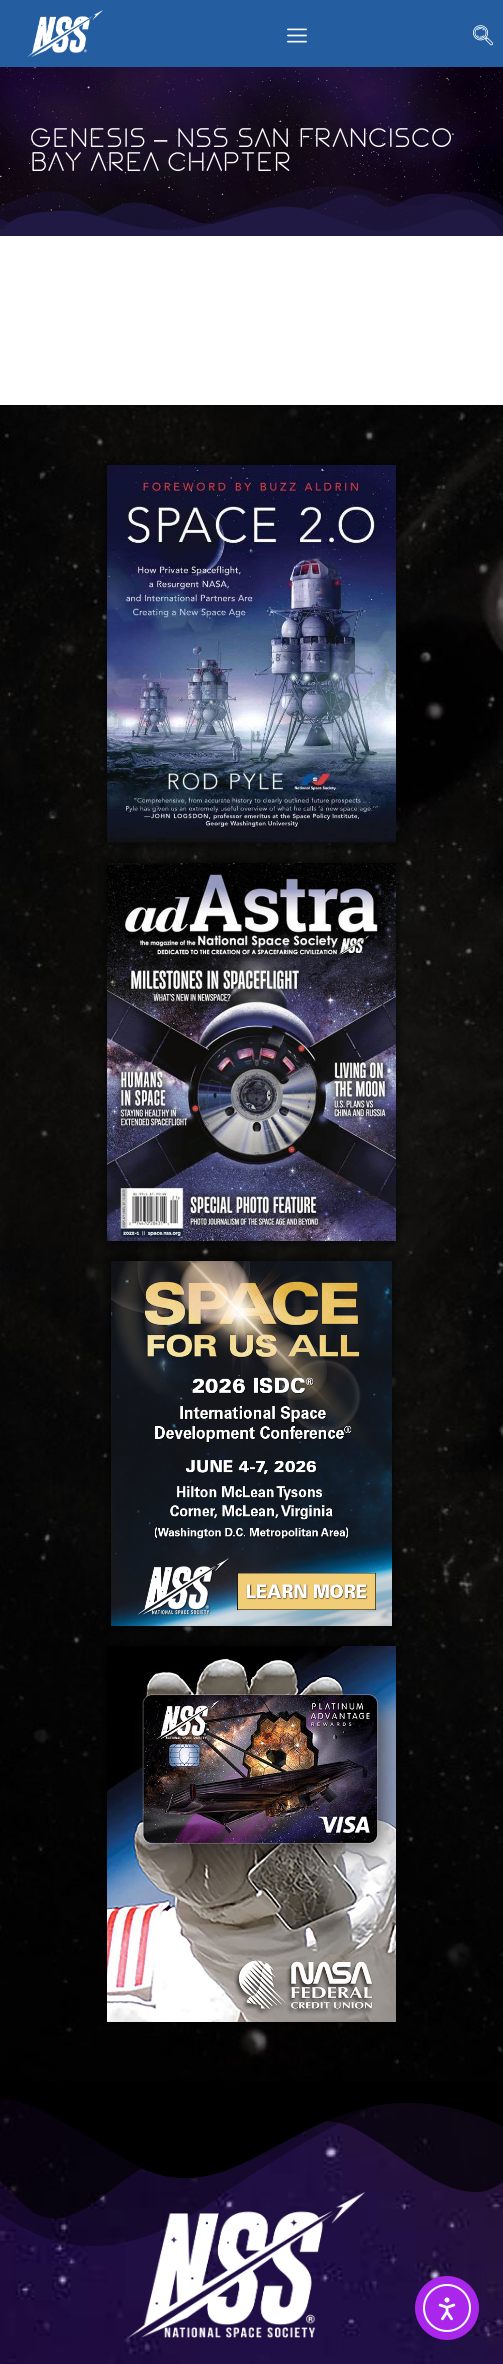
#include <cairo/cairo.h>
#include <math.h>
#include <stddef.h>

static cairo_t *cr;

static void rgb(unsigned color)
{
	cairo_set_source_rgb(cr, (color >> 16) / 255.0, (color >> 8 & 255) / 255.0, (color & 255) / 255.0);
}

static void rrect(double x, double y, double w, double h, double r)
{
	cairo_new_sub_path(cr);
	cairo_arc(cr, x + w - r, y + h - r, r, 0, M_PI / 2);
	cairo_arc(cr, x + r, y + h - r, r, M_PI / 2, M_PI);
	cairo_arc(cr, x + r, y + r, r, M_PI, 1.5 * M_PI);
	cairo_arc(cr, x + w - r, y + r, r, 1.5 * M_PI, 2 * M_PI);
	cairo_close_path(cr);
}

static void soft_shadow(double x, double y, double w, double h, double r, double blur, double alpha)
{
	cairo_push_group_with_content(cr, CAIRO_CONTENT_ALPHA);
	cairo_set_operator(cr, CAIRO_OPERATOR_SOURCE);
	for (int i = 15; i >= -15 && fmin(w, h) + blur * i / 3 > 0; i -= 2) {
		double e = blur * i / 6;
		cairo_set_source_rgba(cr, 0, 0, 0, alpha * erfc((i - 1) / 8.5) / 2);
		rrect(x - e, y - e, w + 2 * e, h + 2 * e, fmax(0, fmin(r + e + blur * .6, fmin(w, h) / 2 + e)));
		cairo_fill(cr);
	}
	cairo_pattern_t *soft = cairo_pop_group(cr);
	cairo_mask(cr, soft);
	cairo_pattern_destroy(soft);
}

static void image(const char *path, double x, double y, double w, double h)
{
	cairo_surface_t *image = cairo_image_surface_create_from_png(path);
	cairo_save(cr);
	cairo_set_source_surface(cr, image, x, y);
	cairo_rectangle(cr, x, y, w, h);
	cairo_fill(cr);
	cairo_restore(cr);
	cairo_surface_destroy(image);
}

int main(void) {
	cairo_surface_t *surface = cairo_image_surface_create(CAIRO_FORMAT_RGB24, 503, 2364);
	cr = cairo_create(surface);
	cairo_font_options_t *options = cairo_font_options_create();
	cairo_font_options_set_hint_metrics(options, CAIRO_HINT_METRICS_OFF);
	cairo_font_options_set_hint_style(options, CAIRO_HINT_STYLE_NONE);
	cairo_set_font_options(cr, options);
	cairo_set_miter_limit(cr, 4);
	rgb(0xffffff);
	cairo_paint(cr);
	rgb(0x245ea1);
	cairo_rectangle(cr, 0, 0, 503, 67);
	cairo_fill(cr);
	image("img/1.png", 27, 10, 76, 47);
	image("img/2.png", 287, 28, 20, 15);
	image("img/3.png", 473, 25, 20, 21);
	image("img/4.png", 0, 67, 503, 168);
	image("img/5.png", 0, 186, 503, 50);
	image("img/6.png", 0, 405, 503, 1676);
	rgb(0x000000);
	soft_shadow(107, 465, 289, 378, 0, 5, 0.79);
	image("img/7.png", 107, 465, 289, 378);
	soft_shadow(107, 863, 289, 378, 0, 5, 0.79);
	image("img/8.png", 107, 863, 289, 378);
	soft_shadow(111, 1261, 281, 365, 0, 5, 0.79);
	image("img/9.png", 111, 1261, 281, 365);
	soft_shadow(107, 1646, 289, 376, 0, 5, 0.79);
	image("img/10.png", 107, 1646, 289, 376);
	image("img/11.png", 0, 2098, 503, 266);
	image("img/12.png", 0, 2081, 503, 165);
	image("img/13.png", 128, 2192, 237, 146);
	rgb(0xab26eb);
	cairo_arc(cr, 447, 2308, 32, 0, 2 * M_PI);
	cairo_fill(cr);
	cairo_arc(cr, 447, 2308, 23, 0, 2 * M_PI);
	rgb(0xffffff);
	cairo_stroke(cr);
	image("img/14.png", 438, 2297, 18, 24);
	cairo_select_font_face(cr, "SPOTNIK", CAIRO_FONT_SLANT_NORMAL, CAIRO_FONT_WEIGHT_NORMAL);
	cairo_set_font_size(cr, 24);
	cairo_move_to(cr, 30, 147);
	cairo_show_text(cr, "Genesis");
	cairo_select_font_face(cr, "Liberation Sans", CAIRO_FONT_SLANT_NORMAL, CAIRO_FONT_WEIGHT_NORMAL);
	cairo_move_to(cr, 154, 147);
	cairo_show_text(cr, "–");
	cairo_select_font_face(cr, "SPOTNIK", CAIRO_FONT_SLANT_NORMAL, CAIRO_FONT_WEIGHT_NORMAL);
	cairo_move_to(cr, 176, 147);
	cairo_show_text(cr, "NSS San Francisco");
	cairo_move_to(cr, 30, 171);
	cairo_show_text(cr, "Bay Area Chapter");
	cairo_surface_write_to_png(surface, "page.png");
	cairo_font_options_destroy(options);
	cairo_destroy(cr);
	cairo_surface_destroy(surface);
	return 0;
}
